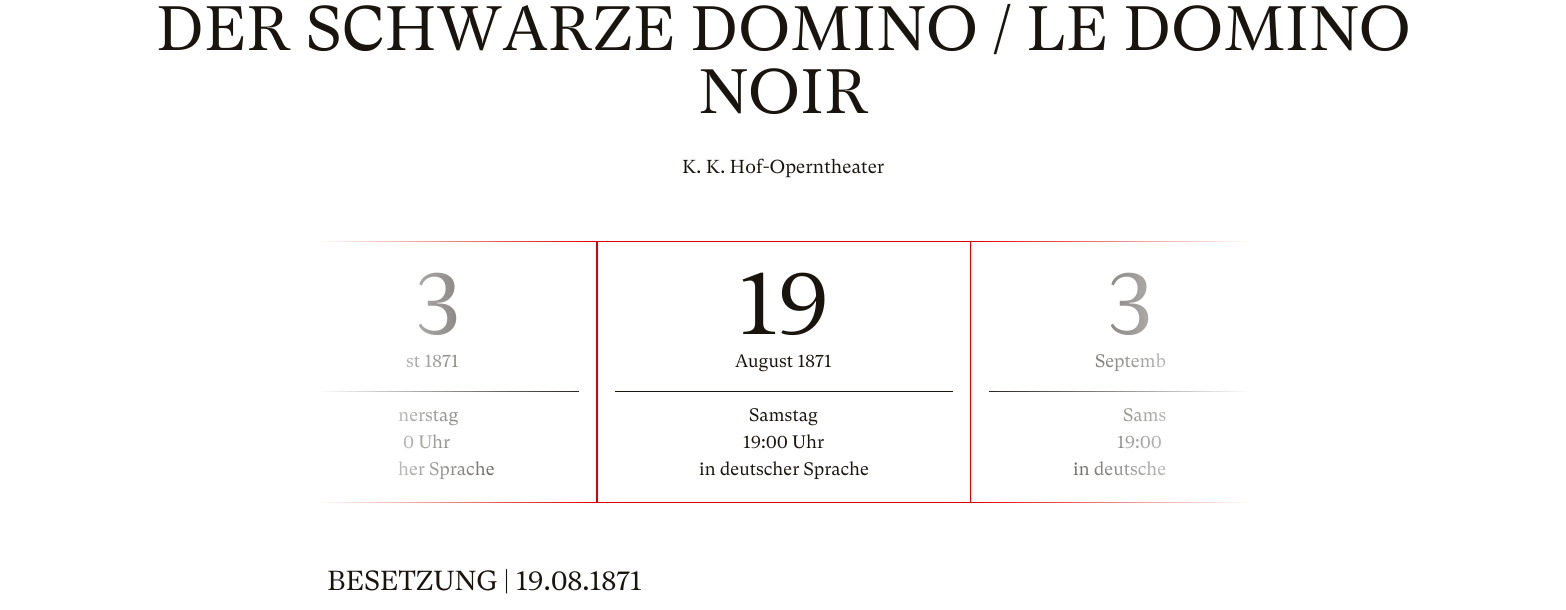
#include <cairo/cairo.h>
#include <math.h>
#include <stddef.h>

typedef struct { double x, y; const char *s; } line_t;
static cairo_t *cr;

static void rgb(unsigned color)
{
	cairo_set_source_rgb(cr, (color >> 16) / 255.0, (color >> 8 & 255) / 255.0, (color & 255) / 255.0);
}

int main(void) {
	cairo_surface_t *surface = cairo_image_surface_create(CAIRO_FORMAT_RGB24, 1566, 610);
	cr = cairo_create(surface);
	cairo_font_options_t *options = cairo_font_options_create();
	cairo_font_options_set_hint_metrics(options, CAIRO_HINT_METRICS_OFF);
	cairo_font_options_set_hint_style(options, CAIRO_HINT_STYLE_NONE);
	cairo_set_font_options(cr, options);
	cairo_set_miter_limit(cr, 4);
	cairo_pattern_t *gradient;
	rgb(0xffffff);
	cairo_paint(cr);
	cairo_rectangle(cr, 223.5, 241.5, 374, 261);
	rgb(0xde0000);
	cairo_set_line_width(cr, 1);
	cairo_stroke(cr);
	rgb(0x19140e);
	cairo_rectangle(cr, 318, 391, 261, 1);
	cairo_fill(cr);
	cairo_rectangle(cr, 596.5, 241.5, 374, 261);
	rgb(0xde0000);
	cairo_stroke(cr);
	rgb(0x19140e);
	cairo_rectangle(cr, 615, 391, 338, 1);
	cairo_fill(cr);
	cairo_rectangle(cr, 970.5, 241.5, 374, 261);
	rgb(0xde0000);
	cairo_stroke(cr);
	rgb(0x19140e);
	cairo_rectangle(cr, 989, 391, 261, 1);
	cairo_fill(cr);
	cairo_select_font_face(cr, "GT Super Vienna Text", CAIRO_FONT_SLANT_NORMAL, CAIRO_FONT_WEIGHT_NORMAL);
	cairo_set_font_size(cr, 62.5);
	cairo_move_to(cr, 156, 50);
	cairo_show_text(cr, "DER SCHWARZE DOMINO / LE DOMINO");
	cairo_move_to(cr, 698, 113);
	cairo_show_text(cr, "NOIR");
	cairo_set_font_size(cr, 18.75);
	cairo_move_to(cr, 682, 173);
	cairo_show_text(cr, "K. K. Hof-Operntheater");
	cairo_set_font_size(cr, 90);
	cairo_move_to(cr, 416, 334);
	cairo_show_text(cr, "3");
	cairo_set_font_size(cr, 18);
	{
		static const line_t items[] = {
			{406, 367, "st 1871"},
			{398, 421, "nerstag"},
			{403, 448, "0 Uhr"},
			{398, 475, "her Sprache"},
		};
		for (size_t i = 0; i < sizeof items / sizeof *items; i++) {
			cairo_move_to(cr, items[i].x, items[i].y);
			cairo_show_text(cr, items[i].s);
		}
	}
	gradient = cairo_pattern_create_linear(223, 372, 598, 372);
	cairo_pattern_add_color_stop_rgba(gradient, 0.25, 1, 1, 1, 1);
	cairo_pattern_add_color_stop_rgba(gradient, 1, 1, 1, 1, 0);
	cairo_set_source(cr, gradient);
	cairo_pattern_destroy(gradient);
	cairo_rectangle(cr, 223, 241, 369, 262);
	cairo_fill(cr);
	cairo_set_font_size(cr, 90);
	rgb(0x19140e);
	cairo_move_to(cr, 739, 334);
	cairo_show_text(cr, "19");
	cairo_set_font_size(cr, 18);
	{
		static const line_t items[] = {
			{735, 367, "August 1871"},
			{749, 421, "Samstag"},
			{743, 448, "19:00 Uhr"},
			{699, 475, "in deutscher Sprache"},
		};
		for (size_t i = 0; i < sizeof items / sizeof *items; i++) {
			cairo_move_to(cr, items[i].x, items[i].y);
			cairo_show_text(cr, items[i].s);
		}
	}
	cairo_set_font_size(cr, 90);
	cairo_move_to(cr, 1108, 334);
	cairo_show_text(cr, "3");
	cairo_set_font_size(cr, 18);
	{
		static const line_t items[] = {
			{1095, 367, "Septemb"},
			{1123, 421, "Sams"},
			{1117, 448, "19:00"},
			{1073, 475, "in deutsche"},
		};
		for (size_t i = 0; i < sizeof items / sizeof *items; i++) {
			cairo_move_to(cr, items[i].x, items[i].y);
			cairo_show_text(cr, items[i].s);
		}
	}
	gradient = cairo_pattern_create_linear(1345, 372, 970, 372);
	cairo_pattern_add_color_stop_rgba(gradient, 0.25, 1, 1, 1, 1);
	cairo_pattern_add_color_stop_rgba(gradient, 1, 1, 1, 1, 0);
	cairo_set_source(cr, gradient);
	cairo_pattern_destroy(gradient);
	cairo_rectangle(cr, 976, 241, 369, 262);
	cairo_fill(cr);
	cairo_set_font_size(cr, 27.5);
	rgb(0x19140e);
	cairo_move_to(cr, 327, 590);
	cairo_show_text(cr, "BESETZUNG | 19.08.1871");
	cairo_surface_write_to_png(surface, "page.png");
	cairo_font_options_destroy(options);
	cairo_destroy(cr);
	cairo_surface_destroy(surface);
	return 0;
}
